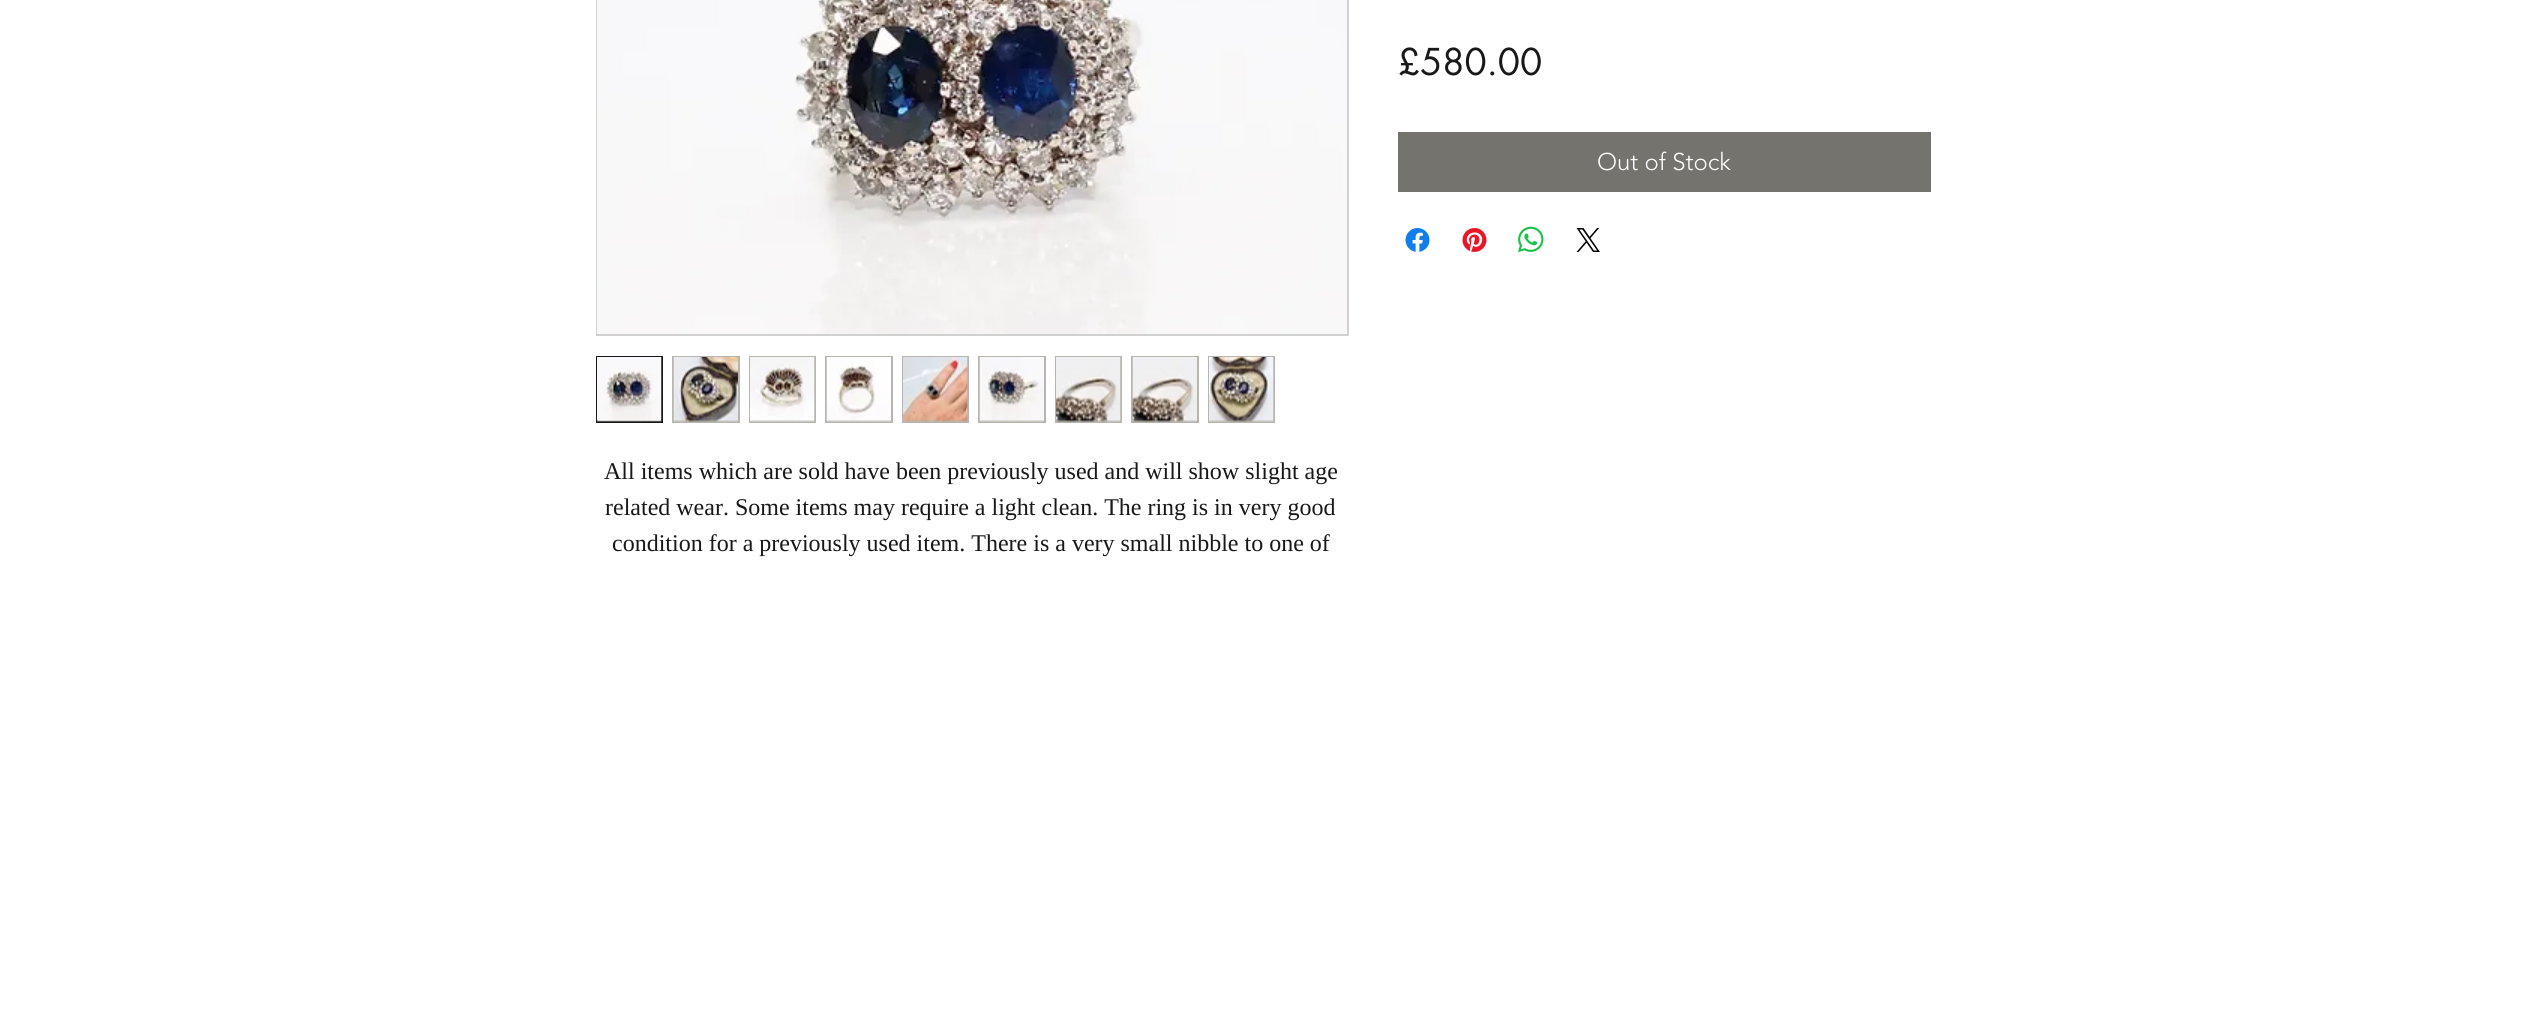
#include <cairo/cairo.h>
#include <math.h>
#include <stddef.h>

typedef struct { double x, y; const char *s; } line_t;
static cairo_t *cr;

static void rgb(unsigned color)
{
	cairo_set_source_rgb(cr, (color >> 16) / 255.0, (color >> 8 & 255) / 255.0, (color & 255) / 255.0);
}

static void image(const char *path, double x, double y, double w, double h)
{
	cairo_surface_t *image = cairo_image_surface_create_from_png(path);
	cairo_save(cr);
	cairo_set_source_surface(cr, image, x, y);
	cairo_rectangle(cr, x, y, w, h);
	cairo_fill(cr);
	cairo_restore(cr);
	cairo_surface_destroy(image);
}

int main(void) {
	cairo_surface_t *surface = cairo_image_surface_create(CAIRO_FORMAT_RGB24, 2523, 1029);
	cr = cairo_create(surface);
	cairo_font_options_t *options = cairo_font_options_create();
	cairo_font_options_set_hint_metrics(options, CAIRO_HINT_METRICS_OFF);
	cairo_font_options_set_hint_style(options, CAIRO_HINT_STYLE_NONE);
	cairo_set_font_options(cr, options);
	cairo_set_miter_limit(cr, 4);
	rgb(0xffffff);
	cairo_paint(cr);
	rgb(0x75736d);
	cairo_rectangle(cr, 1398, 132, 533, 60);
	cairo_fill(cr);
	image("img/1.png", 1405, 228, 25, 24);
	image("img/2.png", 1462, 228, 25, 24);
	image("img/3.png", 1518, 226, 26, 27);
	image("img/4.png", 1576, 228, 24, 24);
	cairo_rectangle(cr, 597, -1, 751, 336);
	rgb(0xd1d1d1);
	cairo_stroke(cr);
	image("img/5.png", 597, 0, 750, 334);
	rgb(0xb8b5ae);
	cairo_rectangle(cr, 598, 420, 63, 1);
	cairo_fill(cr);
	cairo_rectangle(cr, 597, 357, 65, 65);
	rgb(0x181818);
	cairo_stroke(cr);
	image("img/6.png", 597, 357, 65, 65);
	rgb(0xb8b5ae);
	cairo_rectangle(cr, 672, 356, 68, 67);
	cairo_fill(cr);
	image("img/7.png", 673, 357, 65, 65);
	cairo_rectangle(cr, 749, 356, 67, 67);
	cairo_fill(cr);
	image("img/8.png", 750, 357, 65, 65);
	cairo_rectangle(cr, 825, 356, 68, 67);
	cairo_fill(cr);
	image("img/9.png", 826, 357, 65, 65);
	cairo_rectangle(cr, 902, 356, 67, 67);
	cairo_fill(cr);
	image("img/10.png", 903, 357, 65, 65);
	cairo_rectangle(cr, 978, 356, 68, 67);
	cairo_fill(cr);
	image("img/11.png", 979, 357, 65, 65);
	cairo_rectangle(cr, 1055, 356, 67, 67);
	cairo_fill(cr);
	image("img/12.png", 1056, 357, 65, 65);
	cairo_rectangle(cr, 1131, 356, 68, 67);
	cairo_fill(cr);
	image("img/13.png", 1132, 357, 65, 65);
	cairo_rectangle(cr, 1208, 356, 67, 67);
	cairo_fill(cr);
	image("img/14.png", 1209, 357, 65, 65);
	cairo_select_font_face(cr, "futura", CAIRO_FONT_SLANT_NORMAL, CAIRO_FONT_WEIGHT_NORMAL);
	cairo_set_font_size(cr, 36);
	rgb(0x181818);
	cairo_move_to(cr, 1398, 75);
	cairo_show_text(cr, "£580.00");
	cairo_select_font_face(cr, "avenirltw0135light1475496 Light", CAIRO_FONT_SLANT_NORMAL, CAIRO_FONT_WEIGHT_NORMAL);
	cairo_set_font_size(cr, 24);
	rgb(0xffffff);
	cairo_move_to(cr, 1597, 170);
	cairo_show_text(cr, "Out of Stock");
	cairo_select_font_face(cr, "Liberation Serif", CAIRO_FONT_SLANT_NORMAL, CAIRO_FONT_WEIGHT_NORMAL);
	rgb(0x181818);
	{
		static const line_t items[] = {
			{604, 479, "All items which are sold have been previously used and will show slight age"},
			{605, 515, "related wear. Some items may require a light clean. The ring is in very good"},
			{612, 551, "condition for a previously used item. There is a very small nibble to one of"},
		};
		for (size_t i = 0; i < sizeof items / sizeof *items; i++) {
			cairo_move_to(cr, items[i].x, items[i].y);
			cairo_show_text(cr, items[i].s);
		}
	}
	cairo_surface_write_to_png(surface, "page.png");
	cairo_font_options_destroy(options);
	cairo_destroy(cr);
	cairo_surface_destroy(surface);
	return 0;
}
